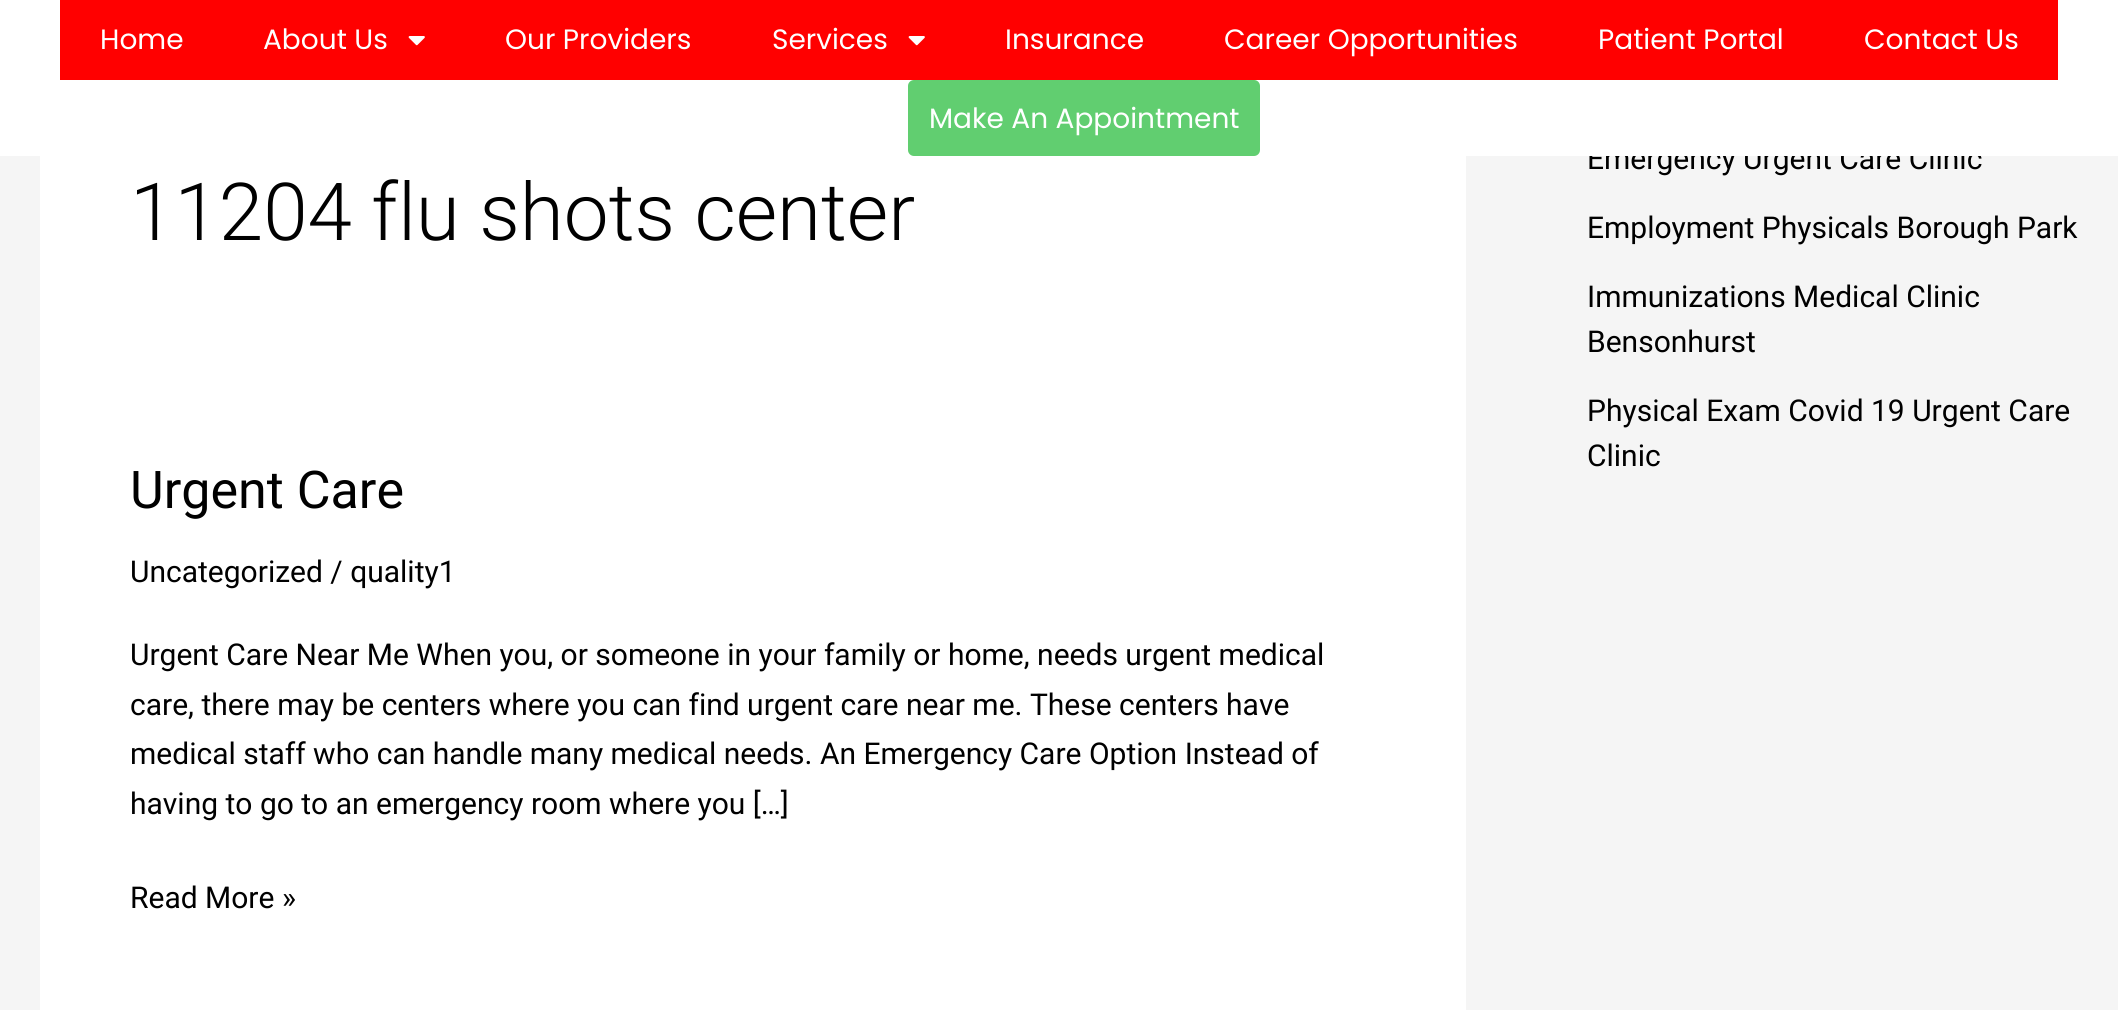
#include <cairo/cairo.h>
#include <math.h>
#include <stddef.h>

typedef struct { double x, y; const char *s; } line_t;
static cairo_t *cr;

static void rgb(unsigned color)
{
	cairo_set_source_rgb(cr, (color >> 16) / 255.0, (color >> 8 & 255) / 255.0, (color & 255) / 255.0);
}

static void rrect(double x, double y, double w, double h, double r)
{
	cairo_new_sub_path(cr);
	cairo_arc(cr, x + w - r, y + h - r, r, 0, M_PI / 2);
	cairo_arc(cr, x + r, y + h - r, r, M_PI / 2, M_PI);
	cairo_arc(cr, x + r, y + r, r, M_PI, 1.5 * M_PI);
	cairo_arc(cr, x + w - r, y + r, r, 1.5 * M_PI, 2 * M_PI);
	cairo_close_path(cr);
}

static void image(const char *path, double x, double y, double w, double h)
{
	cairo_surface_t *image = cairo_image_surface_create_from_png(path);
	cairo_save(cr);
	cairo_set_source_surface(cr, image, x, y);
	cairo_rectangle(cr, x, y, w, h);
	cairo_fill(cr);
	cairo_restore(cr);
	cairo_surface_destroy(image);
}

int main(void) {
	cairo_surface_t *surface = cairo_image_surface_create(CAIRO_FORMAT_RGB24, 2118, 1010);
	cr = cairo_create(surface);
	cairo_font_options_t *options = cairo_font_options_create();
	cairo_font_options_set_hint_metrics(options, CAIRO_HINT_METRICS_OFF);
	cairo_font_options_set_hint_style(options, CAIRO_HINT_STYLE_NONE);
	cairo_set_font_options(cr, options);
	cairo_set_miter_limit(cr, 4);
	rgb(0xf5f5f5);
	cairo_paint(cr);
	rgb(0xffffff);
	cairo_rectangle(cr, 40, 156, 1426, 854);
	cairo_fill(cr);
	cairo_select_font_face(cr, "Roboto Light", CAIRO_FONT_SLANT_NORMAL, CAIRO_FONT_WEIGHT_NORMAL);
	cairo_set_font_size(cr, 80);
	rgb(0x000000);
	cairo_move_to(cr, 130, 240);
	cairo_show_text(cr, "11204 flu shots center");
	cairo_select_font_face(cr, "Roboto", CAIRO_FONT_SLANT_NORMAL, CAIRO_FONT_WEIGHT_NORMAL);
	cairo_set_font_size(cr, 52);
	cairo_move_to(cr, 130, 508);
	cairo_show_text(cr, "Urgent Care");
	cairo_set_font_size(cr, 30);
	{
		static const line_t items[] = {
			{130, 582, "Uncategorized / quality1"},
			{130, 665, "Urgent Care Near Me When you, or someone in your family or home, needs urgent medical"},
			{130, 715, "care, there may be centers where you can find urgent care near me. These centers have"},
			{130, 764, "medical staff who can handle many medical needs. An Emergency Care Option Instead of"},
			{130, 814, "having to go to an emergency room where you […]"},
			{130, 908, "Read More »"},
			{1587, 169, "Emergency Urgent Care Clinic"},
		};
		for (size_t i = 0; i < sizeof items / sizeof *items; i++) {
			cairo_move_to(cr, items[i].x, items[i].y);
			cairo_show_text(cr, items[i].s);
		}
	}
	rgb(0xffffff);
	cairo_rectangle(cr, 0, 0, 2118, 156);
	cairo_fill(cr);
	rgb(0xff0000);
	cairo_rectangle(cr, 60, 0, 1998, 80);
	cairo_fill(cr);
	cairo_select_font_face(cr, "Poppins", CAIRO_FONT_SLANT_NORMAL, CAIRO_FONT_WEIGHT_NORMAL);
	cairo_set_font_size(cr, 28);
	rgb(0xffffff);
	{
		static const line_t items[] = {
			{1864, 49, "Contact Us"},
			{1598, 49, "Patient Portal"},
			{1224, 49, "Career Opportunities"},
			{1005, 49, "Insurance"},
		};
		for (size_t i = 0; i < sizeof items / sizeof *items; i++) {
			cairo_move_to(cr, items[i].x, items[i].y);
			cairo_show_text(cr, items[i].s);
		}
	}
	image("img/1.png", 908, 36, 17, 10);
	cairo_move_to(cr, 772, 49);
	cairo_show_text(cr, "Services");
	cairo_move_to(cr, 505, 49);
	cairo_show_text(cr, "Our Providers");
	image("img/1.png", 408, 36, 17, 10);
	cairo_move_to(cr, 263, 49);
	cairo_show_text(cr, "About Us");
	cairo_move_to(cr, 100, 49);
	cairo_show_text(cr, "Home");
	rgb(0x61ce70);
	rrect(908, 80, 352, 76, 6);
	cairo_fill(cr);
	rgb(0xffffff);
	cairo_move_to(cr, 929, 128);
	cairo_show_text(cr, "Make An Appointment");
	cairo_select_font_face(cr, "Roboto", CAIRO_FONT_SLANT_NORMAL, CAIRO_FONT_WEIGHT_NORMAL);
	cairo_set_font_size(cr, 30);
	rgb(0x000000);
	{
		static const line_t items[] = {
			{1587, 238, "Employment Physicals Borough Park"},
			{1587, 307, "Immunizations Medical Clinic"},
			{1587, 352, "Bensonhurst"},
			{1587, 421, "Physical Exam Covid 19 Urgent Care"},
			{1587, 466, "Clinic"},
		};
		for (size_t i = 0; i < sizeof items / sizeof *items; i++) {
			cairo_move_to(cr, items[i].x, items[i].y);
			cairo_show_text(cr, items[i].s);
		}
	}
	cairo_surface_write_to_png(surface, "page.png");
	cairo_font_options_destroy(options);
	cairo_destroy(cr);
	cairo_surface_destroy(surface);
	return 0;
}
